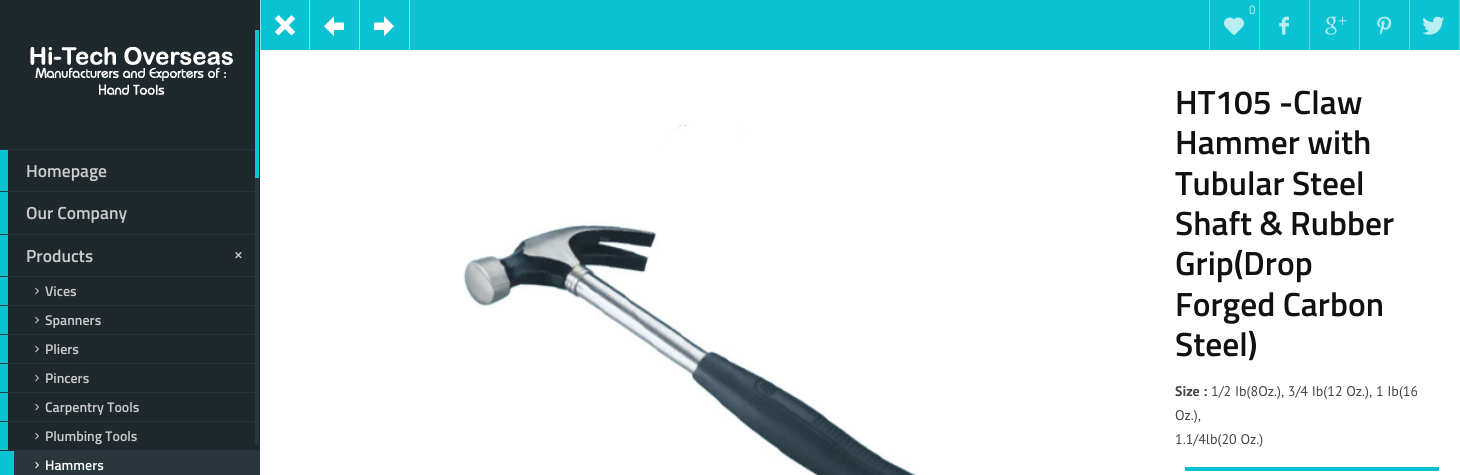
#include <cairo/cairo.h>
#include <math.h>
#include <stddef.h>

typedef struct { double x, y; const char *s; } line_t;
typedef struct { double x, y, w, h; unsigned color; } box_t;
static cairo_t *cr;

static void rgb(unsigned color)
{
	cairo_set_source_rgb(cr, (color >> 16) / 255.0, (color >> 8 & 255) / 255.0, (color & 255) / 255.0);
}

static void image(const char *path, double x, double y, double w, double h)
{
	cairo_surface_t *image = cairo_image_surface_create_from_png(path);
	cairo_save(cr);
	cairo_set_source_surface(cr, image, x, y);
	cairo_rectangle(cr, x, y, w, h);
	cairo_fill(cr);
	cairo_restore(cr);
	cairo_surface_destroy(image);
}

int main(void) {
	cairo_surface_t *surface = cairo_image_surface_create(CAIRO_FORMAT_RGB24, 1460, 475);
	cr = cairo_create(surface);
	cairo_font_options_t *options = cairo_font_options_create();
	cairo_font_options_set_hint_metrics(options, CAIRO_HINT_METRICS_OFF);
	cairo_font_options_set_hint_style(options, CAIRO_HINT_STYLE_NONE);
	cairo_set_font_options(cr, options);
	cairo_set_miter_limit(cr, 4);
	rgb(0xffffff);
	cairo_paint(cr);
	{
		static const box_t items[] = {
			{261, 0, 1198, 50, 0x0ac2d2},
			{309, 0, 1, 50, 0x85e1e9},
			{260, 0, 1, 50, 0x85e1e9},
		};
		for (size_t i = 0; i < sizeof items / sizeof *items; i++) {
			rgb(items[i].color);
			cairo_rectangle(cr, items[i].x, items[i].y, items[i].w, items[i].h);
			cairo_fill(cr);
		}
	}
	image("img/1.png", 275, 15, 20, 21);
	cairo_rectangle(cr, 359, 0, 1, 50);
	cairo_fill(cr);
	image("img/2.png", 324, 16, 20, 21);
	cairo_rectangle(cr, 409, 0, 1, 50);
	cairo_fill(cr);
	image("img/3.png", 374, 16, 20, 21);
	rgb(0x1f282d);
	cairo_rectangle(cr, 0, 0, 260, 450);
	cairo_fill(cr);
	image("img/4.png", 30, 46, 203, 49);
	{
		static const box_t items[] = {
			{0, 149, 260, 1, 0x27373c},
			{0, 191, 260, 1, 0x27373c},
			{0, 150, 8, 41, 0x0ac2d2},
			{0, 234, 260, 1, 0x27373c},
			{0, 192, 8, 42, 0x0ac2d2},
			{0, 276, 260, 1, 0x27373c},
			{0, 235, 8, 41, 0x0ac2d2},
		};
		for (size_t i = 0; i < sizeof items / sizeof *items; i++) {
			rgb(items[i].color);
			cairo_rectangle(cr, items[i].x, items[i].y, items[i].w, items[i].h);
			cairo_fill(cr);
		}
	}
	image("img/5.png", 235, 252, 7, 7);
	rgb(0x27373c);
	cairo_rectangle(cr, 0, 305, 260, 1);
	cairo_fill(cr);
	rgb(0x0ac2d2);
	cairo_rectangle(cr, 0, 277, 8, 28);
	cairo_fill(cr);
	image("img/6.png", 35, 287, 4, 8);
	rgb(0x27373c);
	cairo_rectangle(cr, 0, 334, 260, 1);
	cairo_fill(cr);
	rgb(0x0ac2d2);
	cairo_rectangle(cr, 0, 306, 8, 28);
	cairo_fill(cr);
	image("img/6.png", 35, 316, 4, 8);
	rgb(0x27373c);
	cairo_rectangle(cr, 0, 363, 260, 1);
	cairo_fill(cr);
	rgb(0x0ac2d2);
	cairo_rectangle(cr, 0, 335, 8, 28);
	cairo_fill(cr);
	image("img/6.png", 35, 345, 4, 8);
	rgb(0x27373c);
	cairo_rectangle(cr, 0, 392, 260, 1);
	cairo_fill(cr);
	rgb(0x0ac2d2);
	cairo_rectangle(cr, 0, 364, 8, 28);
	cairo_fill(cr);
	image("img/6.png", 35, 374, 4, 8);
	rgb(0x27373c);
	cairo_rectangle(cr, 0, 421, 260, 1);
	cairo_fill(cr);
	rgb(0x0ac2d2);
	cairo_rectangle(cr, 0, 393, 8, 28);
	cairo_fill(cr);
	image("img/6.png", 35, 403, 4, 8);
	rgb(0x27373c);
	cairo_rectangle(cr, 0, 450, 260, 1);
	cairo_fill(cr);
	rgb(0x0ac2d2);
	cairo_rectangle(cr, 0, 422, 8, 28);
	cairo_fill(cr);
	image("img/6.png", 35, 432, 4, 8);
	rgb(0x27373c);
	cairo_rectangle(cr, 14, 451, 246, 24);
	cairo_fill(cr);
	rgb(0x0ac2d2);
	cairo_rectangle(cr, 0, 451, 14, 24);
	cairo_fill(cr);
	image("img/7.png", 35, 461, 4, 8);
	{
		static const box_t items[] = {
			{255, 30, 4, 148, 0x0ac2d2},
			{255, 178, 4, 267, 0x27373c},
			{1209, 0, 1, 50, 0x61d8e2},
			{1259, 0, 1, 50, 0x61d8e2},
		};
		for (size_t i = 0; i < sizeof items / sizeof *items; i++) {
			rgb(items[i].color);
			cairo_rectangle(cr, items[i].x, items[i].y, items[i].w, items[i].h);
			cairo_fill(cr);
		}
	}
	image("img/8.png", 1224, 17, 20, 18);
	cairo_rectangle(cr, 1309, 0, 1, 50);
	cairo_fill(cr);
	image("img/9.png", 1279, 16, 10, 19);
	cairo_rectangle(cr, 1359, 0, 1, 50);
	cairo_fill(cr);
	image("img/10.png", 1325, 16, 22, 19);
	cairo_rectangle(cr, 1409, 0, 1, 50);
	cairo_fill(cr);
	image("img/11.png", 1377, 16, 15, 19);
	cairo_rectangle(cr, 1459, 0, 1, 50);
	cairo_fill(cr);
	image("img/12.png", 1422, 16, 23, 19);
	image("img/13.png", 463, 120, 455, 355);
	rgb(0x0ac2d2);
	cairo_rectangle(cr, 1185, 467, 254, 4);
	cairo_fill(cr);
	cairo_select_font_face(cr, "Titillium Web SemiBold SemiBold", CAIRO_FONT_SLANT_NORMAL, CAIRO_FONT_WEIGHT_NORMAL);
	cairo_set_font_size(cr, 17.5);
	rgb(0xcccccc);
	{
		static const line_t items[] = {
			{26, 177, "Homepage"},
			{26, 219, "Our Company"},
			{26, 262, "Products"},
		};
		for (size_t i = 0; i < sizeof items / sizeof *items; i++) {
			cairo_move_to(cr, items[i].x, items[i].y);
			cairo_show_text(cr, items[i].s);
		}
	}
	cairo_set_font_size(cr, 14);
	{
		static const line_t items[] = {
			{45, 296, "Vices"},
			{45, 325, "Spanners"},
			{45, 354, "Pliers"},
			{45, 383, "Pincers"},
			{45, 412, "Carpentry Tools"},
			{45, 441, "Plumbing Tools"},
		};
		for (size_t i = 0; i < sizeof items / sizeof *items; i++) {
			cairo_move_to(cr, items[i].x, items[i].y);
			cairo_show_text(cr, items[i].s);
		}
	}
	rgb(0xffffff);
	cairo_move_to(cr, 45, 470);
	cairo_show_text(cr, "Hammers");
	cairo_select_font_face(cr, "PT Sans", CAIRO_FONT_SLANT_NORMAL, CAIRO_FONT_WEIGHT_NORMAL);
	cairo_set_font_size(cr, 12);
	rgb(0xb8edf2);
	cairo_move_to(cr, 1249, 14);
	cairo_show_text(cr, "0");
	cairo_select_font_face(cr, "Titillium Web SemiBold SemiBold", CAIRO_FONT_SLANT_NORMAL, CAIRO_FONT_WEIGHT_NORMAL);
	cairo_set_font_size(cr, 33.5);
	rgb(0x111111);
	{
		static const line_t items[] = {
			{1175, 114, "HT105 -Claw"},
			{1175, 154, "Hammer with"},
			{1175, 195, "Tubular Steel"},
			{1175, 235, "Shaft & Rubber"},
			{1175, 275, "Grip(Drop"},
			{1175, 316, "Forged Carbon"},
			{1175, 356, "Steel)"},
		};
		for (size_t i = 0; i < sizeof items / sizeof *items; i++) {
			cairo_move_to(cr, items[i].x, items[i].y);
			cairo_show_text(cr, items[i].s);
		}
	}
	cairo_select_font_face(cr, "PT Sans", CAIRO_FONT_SLANT_NORMAL, CAIRO_FONT_WEIGHT_BOLD);
	cairo_set_font_size(cr, 14);
	rgb(0x444444);
	cairo_move_to(cr, 1175, 396);
	cairo_show_text(cr, "Size :");
	cairo_select_font_face(cr, "PT Sans", CAIRO_FONT_SLANT_NORMAL, CAIRO_FONT_WEIGHT_NORMAL);
	{
		static const line_t items[] = {
			{1211, 396, "1/2 Ib(8Oz.), 3/4 Ib(12 Oz.), 1 Ib(16"},
			{1175, 420, "Oz.),"},
			{1175, 444, "1.1/4lb(20 Oz.)"},
		};
		for (size_t i = 0; i < sizeof items / sizeof *items; i++) {
			cairo_move_to(cr, items[i].x, items[i].y);
			cairo_show_text(cr, items[i].s);
		}
	}
	cairo_surface_write_to_png(surface, "page.png");
	cairo_font_options_destroy(options);
	cairo_destroy(cr);
	cairo_surface_destroy(surface);
	return 0;
}
